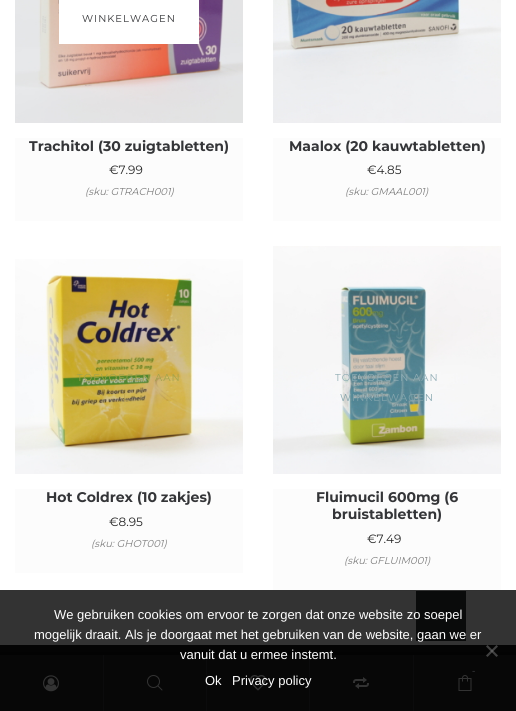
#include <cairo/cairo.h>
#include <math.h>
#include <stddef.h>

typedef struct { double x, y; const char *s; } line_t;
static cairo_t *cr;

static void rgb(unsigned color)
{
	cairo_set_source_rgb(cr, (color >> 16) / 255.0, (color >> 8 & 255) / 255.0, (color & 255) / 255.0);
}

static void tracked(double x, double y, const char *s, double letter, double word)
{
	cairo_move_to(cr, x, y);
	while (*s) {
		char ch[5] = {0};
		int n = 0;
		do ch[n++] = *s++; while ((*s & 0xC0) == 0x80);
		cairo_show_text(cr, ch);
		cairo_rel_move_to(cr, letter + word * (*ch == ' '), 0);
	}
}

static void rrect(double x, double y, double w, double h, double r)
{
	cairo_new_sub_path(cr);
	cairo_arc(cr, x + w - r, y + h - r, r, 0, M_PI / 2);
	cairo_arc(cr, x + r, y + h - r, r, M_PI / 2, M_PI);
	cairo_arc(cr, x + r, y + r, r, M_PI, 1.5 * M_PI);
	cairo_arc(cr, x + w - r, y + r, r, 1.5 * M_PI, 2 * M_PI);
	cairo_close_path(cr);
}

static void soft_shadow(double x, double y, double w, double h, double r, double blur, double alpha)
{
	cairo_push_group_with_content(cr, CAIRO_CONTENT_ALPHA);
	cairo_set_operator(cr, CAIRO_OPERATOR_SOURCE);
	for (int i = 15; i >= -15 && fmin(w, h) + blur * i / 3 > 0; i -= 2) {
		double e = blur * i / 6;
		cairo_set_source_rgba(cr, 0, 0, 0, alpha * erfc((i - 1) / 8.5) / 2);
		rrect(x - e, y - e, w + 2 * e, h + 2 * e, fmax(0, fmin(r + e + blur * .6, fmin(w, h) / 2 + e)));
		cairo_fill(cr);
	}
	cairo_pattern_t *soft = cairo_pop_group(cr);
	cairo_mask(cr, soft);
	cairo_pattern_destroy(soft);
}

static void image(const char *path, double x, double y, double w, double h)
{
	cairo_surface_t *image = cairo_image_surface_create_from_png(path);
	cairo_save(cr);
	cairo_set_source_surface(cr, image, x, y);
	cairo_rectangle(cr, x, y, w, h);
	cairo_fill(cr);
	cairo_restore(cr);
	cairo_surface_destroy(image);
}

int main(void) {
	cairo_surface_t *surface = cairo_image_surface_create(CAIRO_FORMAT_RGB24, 516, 711);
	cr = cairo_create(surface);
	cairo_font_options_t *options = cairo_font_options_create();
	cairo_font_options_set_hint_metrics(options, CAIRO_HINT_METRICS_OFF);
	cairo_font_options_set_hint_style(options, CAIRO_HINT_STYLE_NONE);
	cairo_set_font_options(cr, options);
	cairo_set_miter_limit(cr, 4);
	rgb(0xffffff);
	cairo_paint(cr);
	rgb(0x333333);
	cairo_rectangle(cr, 0, 590, 516, 55);
	cairo_fill(cr);
	image("img/1.png", 15, 0, 228, 123);
	rgb(0xffffff);
	cairo_rectangle(cr, 59, 0, 140, 44);
	cairo_fill(cr);
	rgb(0xfcfcfc);
	cairo_rectangle(cr, 15, 138, 228, 83);
	cairo_fill(cr);
	image("img/2.png", 273, 0, 228, 123);
	cairo_rectangle(cr, 273, 138, 228, 83);
	cairo_fill(cr);
	image("img/3.png", 15, 259, 228, 215);
	cairo_rectangle(cr, 15, 489, 228, 84);
	cairo_fill(cr);
	image("img/4.png", 273, 246, 228, 228);
	cairo_rectangle(cr, 273, 489, 228, 101);
	cairo_fill(cr);
	rgb(0x0a0b0b);
	cairo_rectangle(cr, 416, 591, 50, 50);
	cairo_fill(cr);
	image("img/5.png", 435, 613, 12, 7);
	rgb(0x040404);
	cairo_rectangle(cr, 0, 645, 516, 10);
	cairo_fill(cr);
	rgb(0x000000);
	soft_shadow(0, 655, 516, 56, 0, 3, 0.7);
	rgb(0x070707);
	cairo_rectangle(cr, 0, 655, 516, 56);
	cairo_fill(cr);
	cairo_set_source_rgba(cr, 0.502, 0.502, 0.502, 0.5);
	cairo_new_path(cr);
	cairo_move_to(cr, 496.5, 645);
	cairo_line_to(cr, 498, 646.5);
	cairo_line_to(cr, 487.5, 657);
	cairo_line_to(cr, 486, 655.5);
	cairo_close_path(cr);
	cairo_fill(cr);
	cairo_new_path(cr);
	cairo_move_to(cr, 486, 646.5);
	cairo_line_to(cr, 487.5, 645);
	cairo_line_to(cr, 498, 655.5);
	cairo_line_to(cr, 496.5, 657);
	cairo_close_path(cr);
	cairo_fill(cr);
	rgb(0x0b0b0c);
	cairo_rectangle(cr, 103, 655, 1, 56);
	cairo_fill(cr);
	image("img/6.png", 147, 675, 16, 16);
	cairo_rectangle(cr, 206, 655, 1, 56);
	cairo_fill(cr);
	image("img/7.png", 250, 675, 16, 16);
	cairo_rectangle(cr, 309, 655, 1, 56);
	cairo_fill(cr);
	image("img/8.png", 353, 677, 16, 12);
	cairo_rectangle(cr, 413, 655, 1, 56);
	cairo_fill(cr);
	image("img/9.png", 458, 675, 14, 16);
	image("img/10.png", 43, 675, 16, 17);
	cairo_select_font_face(cr, "Montserrat", CAIRO_FONT_SLANT_NORMAL, CAIRO_FONT_WEIGHT_NORMAL);
	cairo_set_font_size(cr, 10);
	rgb(0x343538);
	tracked(82, 22, "WINKELWAGEN", 1, 0);
	cairo_select_font_face(cr, "Montserrat", CAIRO_FONT_SLANT_NORMAL, CAIRO_FONT_WEIGHT_BOLD);
	cairo_set_font_size(cr, 14);
	cairo_move_to(cr, 29, 151);
	cairo_show_text(cr, "Trachitol (30 zuigtabletten)");
	cairo_select_font_face(cr, "Montserrat", CAIRO_FONT_SLANT_NORMAL, CAIRO_FONT_WEIGHT_NORMAL);
	cairo_set_font_size(cr, 12);
	rgb(0x262626);
	cairo_move_to(cr, 109, 174);
	cairo_show_text(cr, "€7.99");
	cairo_select_font_face(cr, "Montserrat", CAIRO_FONT_SLANT_ITALIC, CAIRO_FONT_WEIGHT_NORMAL);
	cairo_set_font_size(cr, 10);
	rgb(0x808080);
	cairo_move_to(cr, 85, 195);
	cairo_show_text(cr, "(sku: GTRACH001)");
	cairo_select_font_face(cr, "Montserrat", CAIRO_FONT_SLANT_NORMAL, CAIRO_FONT_WEIGHT_BOLD);
	cairo_set_font_size(cr, 14);
	rgb(0x343538);
	cairo_move_to(cr, 289, 151);
	cairo_show_text(cr, "Maalox (20 kauwtabletten)");
	cairo_select_font_face(cr, "Montserrat", CAIRO_FONT_SLANT_NORMAL, CAIRO_FONT_WEIGHT_NORMAL);
	cairo_set_font_size(cr, 12);
	rgb(0x262626);
	cairo_move_to(cr, 367, 174);
	cairo_show_text(cr, "€4.85");
	cairo_select_font_face(cr, "Montserrat", CAIRO_FONT_SLANT_ITALIC, CAIRO_FONT_WEIGHT_NORMAL);
	cairo_set_font_size(cr, 10);
	rgb(0x808080);
	cairo_move_to(cr, 345, 195);
	cairo_show_text(cr, "(sku: GMAAL001)");
	cairo_select_font_face(cr, "Montserrat", CAIRO_FONT_SLANT_NORMAL, CAIRO_FONT_WEIGHT_NORMAL);
	rgb(0xa2a34d);
	tracked(77, 381, "TOEVOEGEN AAN", 1, 0);
	rgb(0xbda451);
	tracked(123, 401, "L", 1, 0);
	cairo_select_font_face(cr, "Montserrat", CAIRO_FONT_SLANT_NORMAL, CAIRO_FONT_WEIGHT_BOLD);
	cairo_set_font_size(cr, 14);
	rgb(0x343538);
	cairo_move_to(cr, 46, 502);
	cairo_show_text(cr, "Hot Coldrex (10 zakjes)");
	cairo_select_font_face(cr, "Montserrat", CAIRO_FONT_SLANT_NORMAL, CAIRO_FONT_WEIGHT_NORMAL);
	cairo_set_font_size(cr, 12);
	rgb(0x262626);
	cairo_move_to(cr, 109, 526);
	cairo_show_text(cr, "€8.95");
	cairo_select_font_face(cr, "Montserrat", CAIRO_FONT_SLANT_ITALIC, CAIRO_FONT_WEIGHT_NORMAL);
	cairo_set_font_size(cr, 10);
	rgb(0x808080);
	cairo_move_to(cr, 91, 547);
	cairo_show_text(cr, "(sku: GHOT001)");
	cairo_select_font_face(cr, "Montserrat", CAIRO_FONT_SLANT_NORMAL, CAIRO_FONT_WEIGHT_NORMAL);
	rgb(0x91adb4);
	tracked(335, 381, "TOEVOEGEN AAN", 1, 0);
	rgb(0x85a5ad);
	tracked(340, 401, "WINKELWAGEN", 1, 0);
	cairo_select_font_face(cr, "Montserrat", CAIRO_FONT_SLANT_NORMAL, CAIRO_FONT_WEIGHT_BOLD);
	cairo_set_font_size(cr, 14);
	rgb(0x343538);
	cairo_move_to(cr, 316, 502);
	cairo_show_text(cr, "Fluimucil 600mg (6");
	cairo_move_to(cr, 332, 519);
	cairo_show_text(cr, "bruistabletten)");
	cairo_select_font_face(cr, "Montserrat", CAIRO_FONT_SLANT_NORMAL, CAIRO_FONT_WEIGHT_NORMAL);
	cairo_set_font_size(cr, 12);
	rgb(0x262626);
	cairo_move_to(cr, 367, 543);
	cairo_show_text(cr, "€7.49");
	cairo_select_font_face(cr, "Montserrat", CAIRO_FONT_SLANT_ITALIC, CAIRO_FONT_WEIGHT_NORMAL);
	cairo_set_font_size(cr, 10);
	rgb(0x808080);
	cairo_move_to(cr, 344, 564);
	cairo_show_text(cr, "(sku: GFLUIM001)");
	cairo_select_font_face(cr, "Liberation Sans", CAIRO_FONT_SLANT_NORMAL, CAIRO_FONT_WEIGHT_NORMAL);
	cairo_set_font_size(cr, 13);
	rgb(0xffffff);
	{
		static const line_t items[] = {
			{54, 619, "We gebruiken cookies om ervoor te zorgen dat onze website zo soepel"},
			{34, 639, "mogelijk draait. Als je doorgaat met het gebruiken van de website, gaan we er"},
			{180, 659, "vanuit dat u ermee instemt."},
			{205, 685, "Ok"},
			{232, 685, "Privacy policy"},
		};
		for (size_t i = 0; i < sizeof items / sizeof *items; i++) {
			cairo_move_to(cr, items[i].x, items[i].y);
			cairo_show_text(cr, items[i].s);
		}
	}
	cairo_set_font_size(cr, 10);
	rgb(0x343538);
	cairo_move_to(cr, 472, 674);
	cairo_show_text(cr, "-");
	cairo_surface_write_to_png(surface, "page.png");
	cairo_font_options_destroy(options);
	cairo_destroy(cr);
	cairo_surface_destroy(surface);
	return 0;
}
